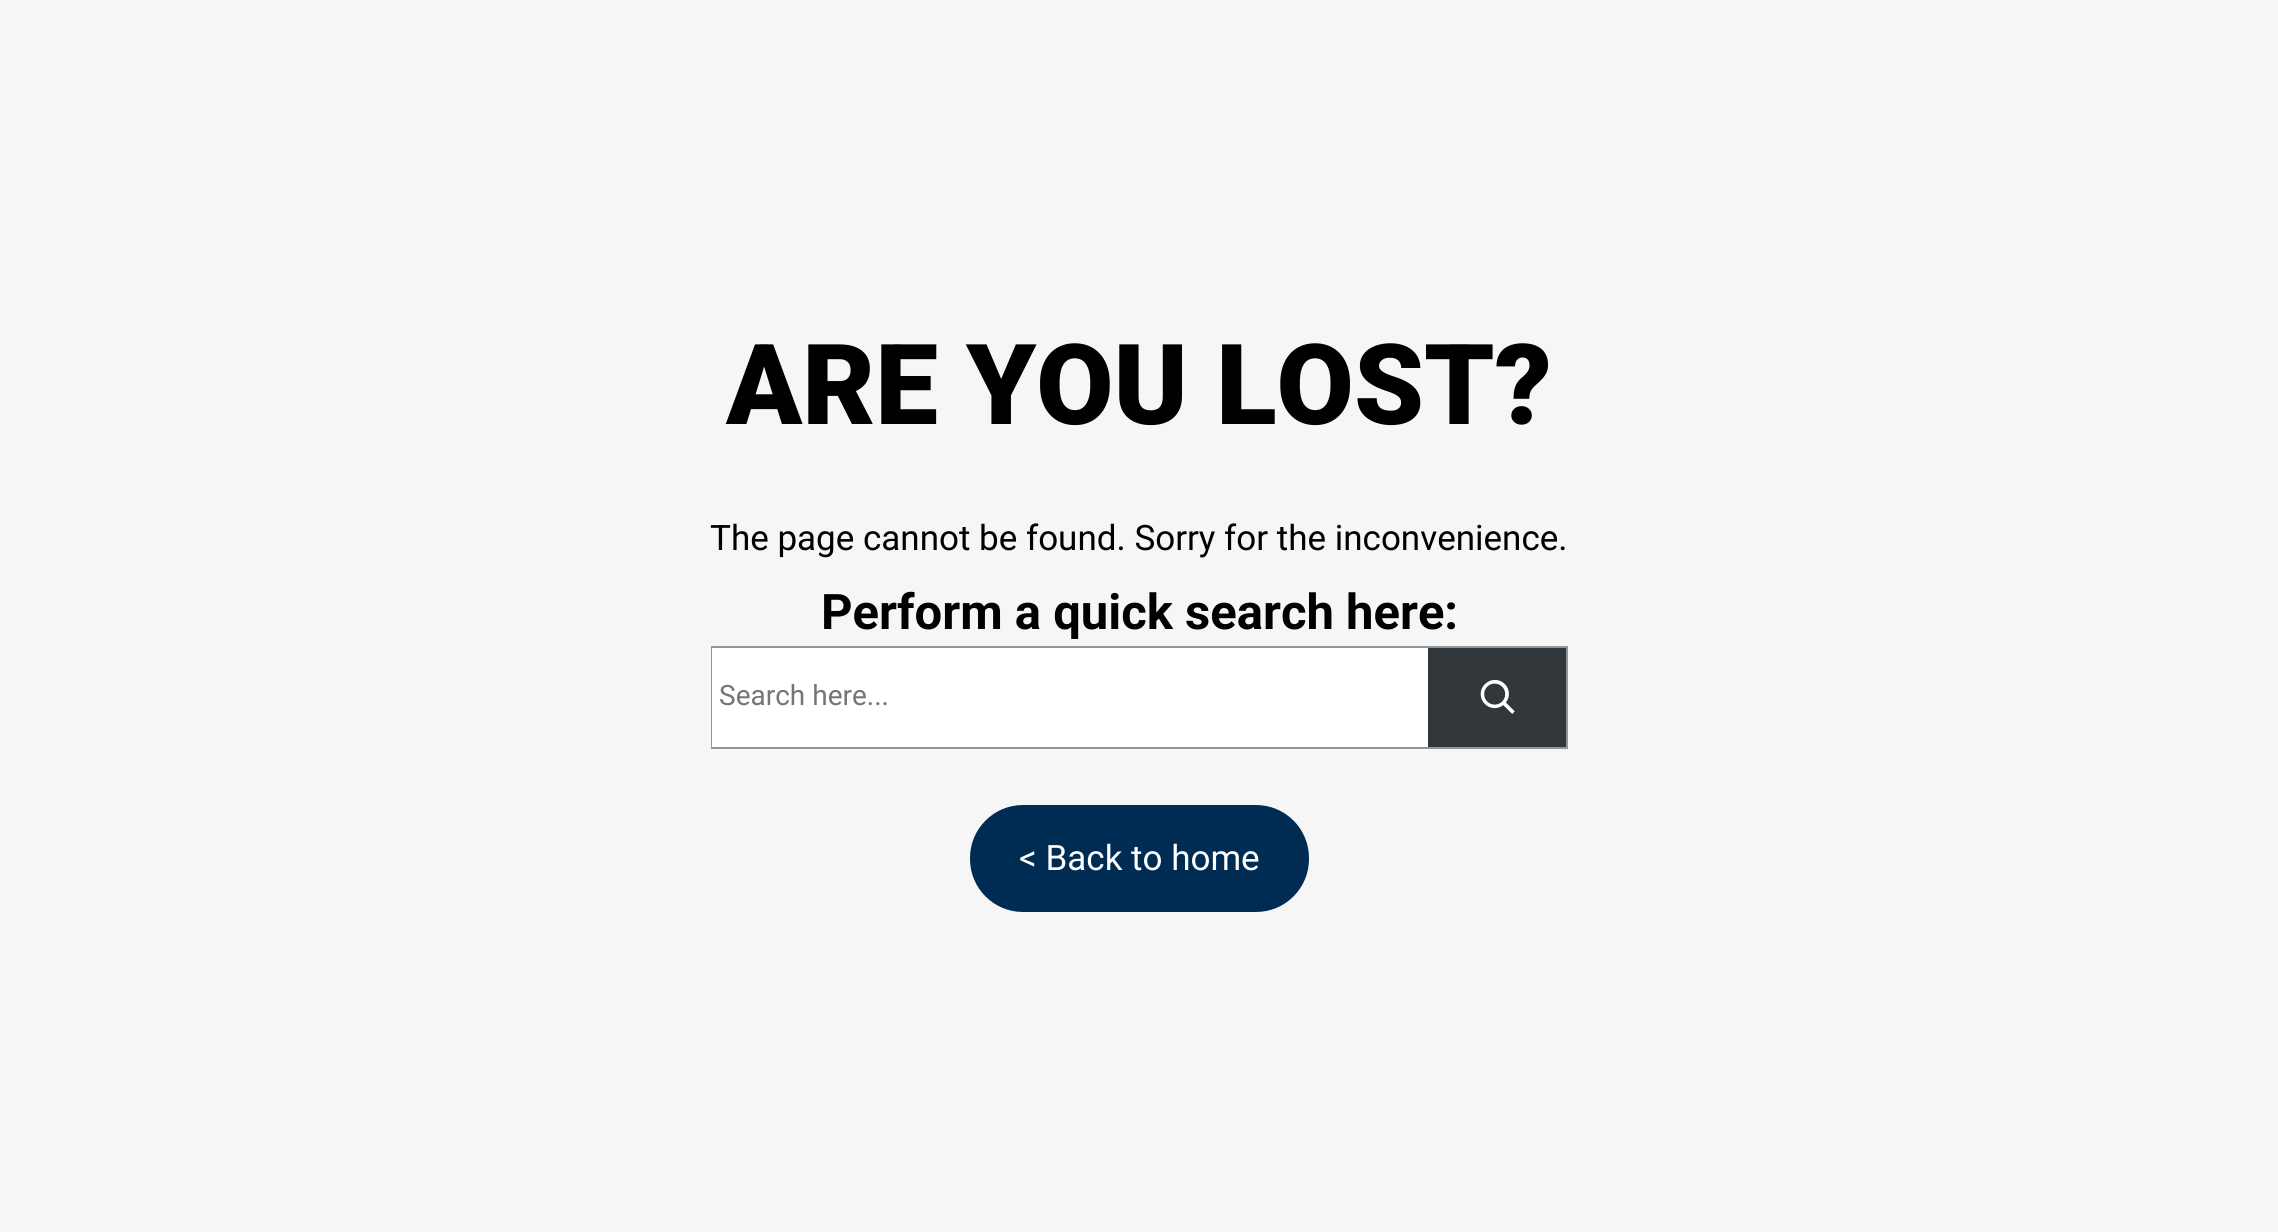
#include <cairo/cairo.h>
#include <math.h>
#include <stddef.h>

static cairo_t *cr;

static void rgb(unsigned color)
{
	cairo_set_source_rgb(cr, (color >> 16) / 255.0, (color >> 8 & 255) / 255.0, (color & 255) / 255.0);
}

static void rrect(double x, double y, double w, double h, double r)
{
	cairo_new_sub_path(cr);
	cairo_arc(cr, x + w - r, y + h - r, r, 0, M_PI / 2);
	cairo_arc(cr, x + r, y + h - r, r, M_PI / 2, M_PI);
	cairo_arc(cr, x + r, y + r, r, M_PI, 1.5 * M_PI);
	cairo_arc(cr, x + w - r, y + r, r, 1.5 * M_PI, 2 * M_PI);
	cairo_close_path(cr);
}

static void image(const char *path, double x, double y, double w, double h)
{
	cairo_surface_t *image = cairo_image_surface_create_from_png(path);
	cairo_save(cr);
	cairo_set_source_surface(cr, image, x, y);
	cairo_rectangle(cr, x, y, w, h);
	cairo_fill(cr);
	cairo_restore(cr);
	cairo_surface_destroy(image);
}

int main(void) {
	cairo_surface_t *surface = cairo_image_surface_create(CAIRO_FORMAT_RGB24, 2278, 1232);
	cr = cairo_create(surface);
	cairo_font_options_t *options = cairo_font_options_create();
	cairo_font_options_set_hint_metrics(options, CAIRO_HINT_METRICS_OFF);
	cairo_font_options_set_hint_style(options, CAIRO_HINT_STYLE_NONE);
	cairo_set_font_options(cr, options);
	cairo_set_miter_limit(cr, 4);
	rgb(0xf6f6f6);
	cairo_paint(cr);
	cairo_rectangle(cr, 712, 647, 855, 101);
	rgb(0x949494);
	cairo_stroke(cr);
	rgb(0xffffff);
	cairo_rectangle(cr, 712, 648, 716, 99);
	cairo_fill(cr);
	rgb(0x32373c);
	cairo_rectangle(cr, 1428, 648, 138, 99);
	cairo_fill(cr);
	image("img/1.png", 1480, 679, 35, 35);
	rgb(0x002c54);
	rrect(970, 805, 339, 107, 53);
	cairo_fill(cr);
	cairo_select_font_face(cr, "Roboto Black", CAIRO_FONT_SLANT_NORMAL, CAIRO_FONT_WEIGHT_NORMAL);
	cairo_set_font_size(cr, 112);
	rgb(0x000000);
	cairo_move_to(cr, 726, 424);
	cairo_show_text(cr, "ARE YOU LOST?");
	cairo_select_font_face(cr, "Roboto", CAIRO_FONT_SLANT_NORMAL, CAIRO_FONT_WEIGHT_NORMAL);
	cairo_set_font_size(cr, 35);
	cairo_move_to(cr, 710, 550);
	cairo_show_text(cr, "The page cannot be found. Sorry for the inconvenience.");
	cairo_select_font_face(cr, "Roboto", CAIRO_FONT_SLANT_NORMAL, CAIRO_FONT_WEIGHT_BOLD);
	cairo_set_font_size(cr, 49);
	cairo_move_to(cr, 821, 629);
	cairo_show_text(cr, "Perform a quick search here:");
	cairo_select_font_face(cr, "Roboto", CAIRO_FONT_SLANT_NORMAL, CAIRO_FONT_WEIGHT_NORMAL);
	cairo_set_font_size(cr, 28);
	rgb(0x757575);
	cairo_move_to(cr, 719, 705);
	cairo_show_text(cr, "Search here...");
	cairo_set_font_size(cr, 35);
	rgb(0xffffff);
	cairo_move_to(cr, 1019, 870);
	cairo_show_text(cr, "< Back to home");
	cairo_surface_write_to_png(surface, "page.png");
	cairo_font_options_destroy(options);
	cairo_destroy(cr);
	cairo_surface_destroy(surface);
	return 0;
}
